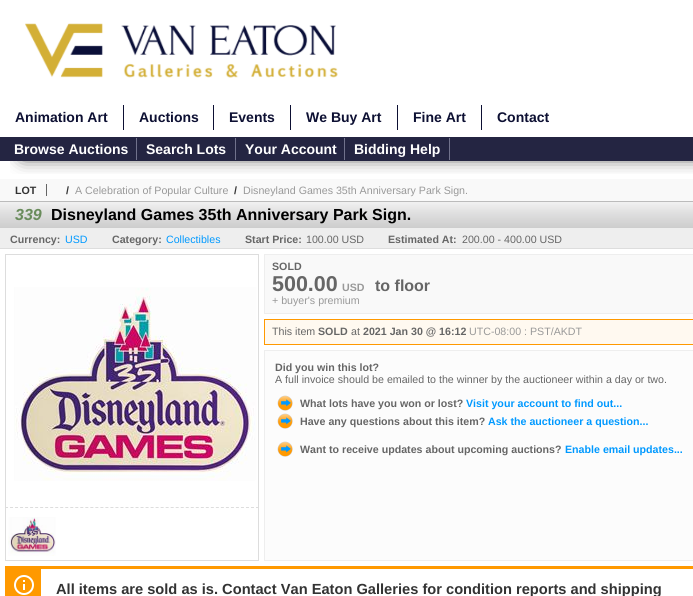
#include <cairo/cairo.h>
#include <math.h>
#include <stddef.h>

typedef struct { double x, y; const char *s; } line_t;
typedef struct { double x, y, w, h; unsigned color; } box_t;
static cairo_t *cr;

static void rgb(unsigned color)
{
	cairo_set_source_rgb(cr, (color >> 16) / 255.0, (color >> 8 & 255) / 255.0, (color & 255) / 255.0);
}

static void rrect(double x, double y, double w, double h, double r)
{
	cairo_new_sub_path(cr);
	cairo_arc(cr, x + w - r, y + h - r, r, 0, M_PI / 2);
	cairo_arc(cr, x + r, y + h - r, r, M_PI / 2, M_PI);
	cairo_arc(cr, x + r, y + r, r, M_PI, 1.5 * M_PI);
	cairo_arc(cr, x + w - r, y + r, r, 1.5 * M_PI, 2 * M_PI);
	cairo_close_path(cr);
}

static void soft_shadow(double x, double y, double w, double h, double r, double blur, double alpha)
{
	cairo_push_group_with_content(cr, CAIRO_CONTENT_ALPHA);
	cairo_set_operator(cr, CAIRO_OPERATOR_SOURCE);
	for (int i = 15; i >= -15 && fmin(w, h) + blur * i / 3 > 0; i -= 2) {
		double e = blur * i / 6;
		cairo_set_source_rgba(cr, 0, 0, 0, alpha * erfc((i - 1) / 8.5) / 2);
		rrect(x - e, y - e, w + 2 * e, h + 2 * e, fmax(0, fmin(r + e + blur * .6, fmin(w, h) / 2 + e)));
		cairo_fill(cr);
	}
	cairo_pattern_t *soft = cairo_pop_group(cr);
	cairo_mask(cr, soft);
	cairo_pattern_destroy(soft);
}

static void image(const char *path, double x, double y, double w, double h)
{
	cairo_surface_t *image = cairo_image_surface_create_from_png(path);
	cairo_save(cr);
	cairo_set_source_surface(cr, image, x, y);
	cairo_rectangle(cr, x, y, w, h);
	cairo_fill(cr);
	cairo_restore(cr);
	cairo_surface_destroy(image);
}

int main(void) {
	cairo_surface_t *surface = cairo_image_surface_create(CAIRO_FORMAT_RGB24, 693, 596);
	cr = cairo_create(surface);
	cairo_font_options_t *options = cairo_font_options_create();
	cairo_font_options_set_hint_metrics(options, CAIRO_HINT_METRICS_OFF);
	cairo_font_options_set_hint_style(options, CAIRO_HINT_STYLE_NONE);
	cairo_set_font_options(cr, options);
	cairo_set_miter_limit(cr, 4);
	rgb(0xffffff);
	cairo_paint(cr);
	rgb(0xf9f9f9);
	cairo_rectangle(cr, 0, 179, 693, 22);
	cairo_fill(cr);
	rgb(0x666666);
	cairo_rectangle(cr, 46, 184, 1, 12);
	cairo_fill(cr);
	cairo_save(cr);
	cairo_rectangle(cr, 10, 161, 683, 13);
	cairo_clip(cr);
	rgb(0x000000);
	soft_shadow(23, 40, 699, 115, 0, 9.5, 1);
	cairo_restore(cr);
	image("img/1.png", 25, 23, 313, 55);
	{
		static const box_t items[] = {
			{123, 105, 1, 25, 0x0d1033},
			{213, 105, 1, 25, 0x0d1033},
			{290, 105, 1, 25, 0x0d1033},
			{397, 105, 1, 25, 0x0d1033},
			{481, 105, 1, 25, 0x0d1033},
			{0, 137, 693, 24, 0x242542},
			{136, 138, 1, 22, 0x71728c},
			{235, 138, 1, 22, 0x71728c},
			{344, 138, 1, 22, 0x71728c},
			{449, 138, 1, 22, 0x71728c},
			{0, 201, 693, 1, 0xbbbbbb},
		};
		for (size_t i = 0; i < sizeof items / sizeof *items; i++) {
			rgb(items[i].color);
			cairo_rectangle(cr, items[i].x, items[i].y, items[i].w, items[i].h);
			cairo_fill(cr);
		}
	}
	image("img/2.png", 0, 202, 693, 26);
	{
		static const box_t items[] = {
			{0, 228, 693, 20, 0xeeeeee},
			{0, 248, 693, 1, 0xdddddd},
			{5, 254, 254, 1, 0xdddddd},
			{258, 254, 1, 253, 0xdddddd},
			{5, 254, 1, 253, 0xdddddd},
		};
		for (size_t i = 0; i < sizeof items / sizeof *items; i++) {
			rgb(items[i].color);
			cairo_rectangle(cr, items[i].x, items[i].y, items[i].w, items[i].h);
			cairo_fill(cr);
		}
	}
	image("img/3.png", 14, 287, 243, 194);
	cairo_new_path(cr);
	cairo_move_to(cr, 5, 507.5);
	cairo_line_to(cr, 259, 507.5);
	cairo_set_line_width(cr, 1);
	cairo_set_dash(cr, (double[]){3, 2.02}, 2, 0);
	cairo_stroke(cr);
	{
		static const box_t items[] = {
			{258, 507, 1, 54, 0xdddddd},
			{5, 560, 254, 1, 0xdddddd},
			{5, 507, 1, 54, 0xdddddd},
		};
		for (size_t i = 0; i < sizeof items / sizeof *items; i++) {
			rgb(items[i].color);
			cairo_rectangle(cr, items[i].x, items[i].y, items[i].w, items[i].h);
			cairo_fill(cr);
		}
	}
	image("img/4.png", 8, 517, 48, 39);
	rgb(0xf9f9f9);
	cairo_rectangle(cr, 264.5, 254.5, 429, 59);
	cairo_fill_preserve(cr);
	rgb(0xeeeeee);
	cairo_set_dash(cr, NULL, 0, 0);
	cairo_stroke(cr);
	rgb(0xfff9f0);
	cairo_rectangle(cr, 264.5, 319.5, 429, 25);
	cairo_fill_preserve(cr);
	rgb(0xff9900);
	cairo_stroke(cr);
	rgb(0xfcfcfc);
	cairo_rectangle(cr, 264.5, 350.5, 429, 210);
	cairo_fill_preserve(cr);
	rgb(0xeeeeee);
	cairo_stroke(cr);
	image("img/5.png", 277, 395, 16, 16);
	image("img/5.png", 277, 413, 16, 16);
	image("img/5.png", 277, 441, 16, 16);
	rgb(0xff9900);
	cairo_rectangle(cr, 41, 566, 652, 3);
	cairo_fill(cr);
	cairo_rectangle(cr, 5, 566, 36, 30);
	cairo_fill(cr);
	image("img/6.png", 14, 575, 20, 20);
	cairo_select_font_face(cr, "Liberation Sans", CAIRO_FONT_SLANT_NORMAL, CAIRO_FONT_WEIGHT_BOLD);
	cairo_set_font_size(cr, 14);
	rgb(0x0d1033);
	{
		static const line_t items[] = {
			{15, 122, "Animation Art"},
			{139, 122, "Auctions"},
			{229, 122, "Events"},
			{306, 122, "We Buy Art"},
			{413, 122, "Fine Art"},
			{497, 122, "Contact"},
		};
		for (size_t i = 0; i < sizeof items / sizeof *items; i++) {
			cairo_move_to(cr, items[i].x, items[i].y);
			cairo_show_text(cr, items[i].s);
		}
	}
	rgb(0xffffff);
	{
		static const line_t items[] = {
			{14, 154, "Browse Auctions"},
			{146, 154, "Search Lots"},
			{245, 154, "Your Account"},
			{354, 154, "Bidding Help"},
		};
		for (size_t i = 0; i < sizeof items / sizeof *items; i++) {
			cairo_move_to(cr, items[i].x, items[i].y);
			cairo_show_text(cr, items[i].s);
		}
	}
	cairo_set_font_size(cr, 10.65);
	rgb(0x333333);
	cairo_move_to(cr, 15, 194);
	cairo_show_text(cr, "LOT");
	cairo_move_to(cr, 66, 194);
	cairo_show_text(cr, "/");
	cairo_select_font_face(cr, "Liberation Sans", CAIRO_FONT_SLANT_NORMAL, CAIRO_FONT_WEIGHT_NORMAL);
	rgb(0x999999);
	cairo_move_to(cr, 75, 194);
	cairo_show_text(cr, "A Celebration of Popular Culture");
	cairo_select_font_face(cr, "Liberation Sans", CAIRO_FONT_SLANT_NORMAL, CAIRO_FONT_WEIGHT_BOLD);
	rgb(0x333333);
	cairo_move_to(cr, 234, 194);
	cairo_show_text(cr, "/");
	cairo_select_font_face(cr, "Liberation Sans", CAIRO_FONT_SLANT_NORMAL, CAIRO_FONT_WEIGHT_NORMAL);
	rgb(0x999999);
	cairo_move_to(cr, 243, 194);
	cairo_show_text(cr, "Disneyland Games 35th Anniversary Park Sign.");
	cairo_select_font_face(cr, "Liberation Sans", CAIRO_FONT_SLANT_ITALIC, CAIRO_FONT_WEIGHT_BOLD);
	cairo_set_font_size(cr, 16);
	rgb(0x698c5b);
	cairo_move_to(cr, 15, 220);
	cairo_show_text(cr, "339");
	cairo_select_font_face(cr, "Liberation Sans", CAIRO_FONT_SLANT_NORMAL, CAIRO_FONT_WEIGHT_BOLD);
	rgb(0x000000);
	cairo_move_to(cr, 51, 220);
	cairo_show_text(cr, "Disneyland Games 35th Anniversary Park Sign.");
	cairo_set_font_size(cr, 10.65);
	rgb(0x666666);
	cairo_move_to(cr, 10, 243);
	cairo_show_text(cr, "Currency:");
	cairo_select_font_face(cr, "Liberation Sans", CAIRO_FONT_SLANT_NORMAL, CAIRO_FONT_WEIGHT_NORMAL);
	rgb(0x0099ff);
	cairo_move_to(cr, 65, 243);
	cairo_show_text(cr, "USD");
	cairo_select_font_face(cr, "Liberation Sans", CAIRO_FONT_SLANT_NORMAL, CAIRO_FONT_WEIGHT_BOLD);
	rgb(0x666666);
	cairo_move_to(cr, 112, 243);
	cairo_show_text(cr, "Category:");
	cairo_select_font_face(cr, "Liberation Sans", CAIRO_FONT_SLANT_NORMAL, CAIRO_FONT_WEIGHT_NORMAL);
	rgb(0x0099ff);
	cairo_move_to(cr, 166, 243);
	cairo_show_text(cr, "Collectibles");
	cairo_select_font_face(cr, "Liberation Sans", CAIRO_FONT_SLANT_NORMAL, CAIRO_FONT_WEIGHT_BOLD);
	rgb(0x666666);
	cairo_move_to(cr, 245, 243);
	cairo_show_text(cr, "Start Price:");
	cairo_select_font_face(cr, "Liberation Sans", CAIRO_FONT_SLANT_NORMAL, CAIRO_FONT_WEIGHT_NORMAL);
	cairo_move_to(cr, 306, 243);
	cairo_show_text(cr, "100.00 USD");
	cairo_select_font_face(cr, "Liberation Sans", CAIRO_FONT_SLANT_NORMAL, CAIRO_FONT_WEIGHT_BOLD);
	cairo_move_to(cr, 388, 243);
	cairo_show_text(cr, "Estimated At:");
	cairo_select_font_face(cr, "Liberation Sans", CAIRO_FONT_SLANT_NORMAL, CAIRO_FONT_WEIGHT_NORMAL);
	cairo_move_to(cr, 462, 243);
	cairo_show_text(cr, "200.00 - 400.00 USD");
	cairo_select_font_face(cr, "Liberation Sans", CAIRO_FONT_SLANT_NORMAL, CAIRO_FONT_WEIGHT_BOLD);
	cairo_move_to(cr, 272, 270);
	cairo_show_text(cr, "SOLD");
	cairo_set_font_size(cr, 21.5);
	cairo_move_to(cr, 272, 291);
	cairo_show_text(cr, "500.00");
	cairo_set_font_size(cr, 10.65);
	rgb(0x999999);
	cairo_move_to(cr, 342, 291);
	cairo_show_text(cr, "USD");
	cairo_set_font_size(cr, 16);
	rgb(0x666666);
	cairo_move_to(cr, 375, 291);
	cairo_show_text(cr, "to floor");
	cairo_select_font_face(cr, "Liberation Sans", CAIRO_FONT_SLANT_NORMAL, CAIRO_FONT_WEIGHT_NORMAL);
	cairo_set_font_size(cr, 10.65);
	rgb(0x999999);
	cairo_move_to(cr, 272, 304);
	cairo_show_text(cr, "+ buyer's premium");
	rgb(0x666666);
	cairo_move_to(cr, 272, 335);
	cairo_show_text(cr, "This item");
	cairo_select_font_face(cr, "Liberation Sans", CAIRO_FONT_SLANT_NORMAL, CAIRO_FONT_WEIGHT_BOLD);
	cairo_move_to(cr, 318, 335);
	cairo_show_text(cr, "SOLD");
	cairo_select_font_face(cr, "Liberation Sans", CAIRO_FONT_SLANT_NORMAL, CAIRO_FONT_WEIGHT_NORMAL);
	cairo_move_to(cr, 351, 335);
	cairo_show_text(cr, "at");
	cairo_select_font_face(cr, "Liberation Sans", CAIRO_FONT_SLANT_NORMAL, CAIRO_FONT_WEIGHT_BOLD);
	cairo_move_to(cr, 363, 335);
	cairo_show_text(cr, "2021 Jan 30 @ 16:12");
	cairo_select_font_face(cr, "Liberation Sans", CAIRO_FONT_SLANT_NORMAL, CAIRO_FONT_WEIGHT_NORMAL);
	rgb(0x999999);
	cairo_move_to(cr, 469, 335);
	cairo_show_text(cr, "UTC-08:00 : PST/AKDT");
	cairo_select_font_face(cr, "Liberation Sans", CAIRO_FONT_SLANT_NORMAL, CAIRO_FONT_WEIGHT_BOLD);
	rgb(0x666666);
	cairo_move_to(cr, 275, 371);
	cairo_show_text(cr, "Did you win this lot?");
	cairo_select_font_face(cr, "Liberation Sans", CAIRO_FONT_SLANT_NORMAL, CAIRO_FONT_WEIGHT_NORMAL);
	cairo_move_to(cr, 275, 383);
	cairo_show_text(cr, "A full invoice should be emailed to the winner by the auctioneer within a day or two.");
	cairo_select_font_face(cr, "Liberation Sans", CAIRO_FONT_SLANT_NORMAL, CAIRO_FONT_WEIGHT_BOLD);
	cairo_move_to(cr, 300, 407);
	cairo_show_text(cr, "What lots have you won or lost?");
	rgb(0x0099ff);
	cairo_move_to(cr, 466, 407);
	cairo_show_text(cr, "Visit your account to find out...");
	rgb(0x666666);
	cairo_move_to(cr, 300, 425);
	cairo_show_text(cr, "Have any questions about this item?");
	rgb(0x0099ff);
	cairo_move_to(cr, 488, 425);
	cairo_show_text(cr, "Ask the auctioneer a question...");
	rgb(0x666666);
	cairo_move_to(cr, 300, 453);
	cairo_show_text(cr, "Want to receive updates about upcoming auctions?");
	rgb(0x0099ff);
	cairo_move_to(cr, 565, 453);
	cairo_show_text(cr, "Enable email updates...");
	cairo_set_font_size(cr, 14.65);
	rgb(0x333333);
	cairo_move_to(cr, 56, 594);
	cairo_show_text(cr, "All items are sold as is. Contact Van Eaton Galleries for condition reports and shipping");
	cairo_surface_write_to_png(surface, "page.png");
	cairo_font_options_destroy(options);
	cairo_destroy(cr);
	cairo_surface_destroy(surface);
	return 0;
}
